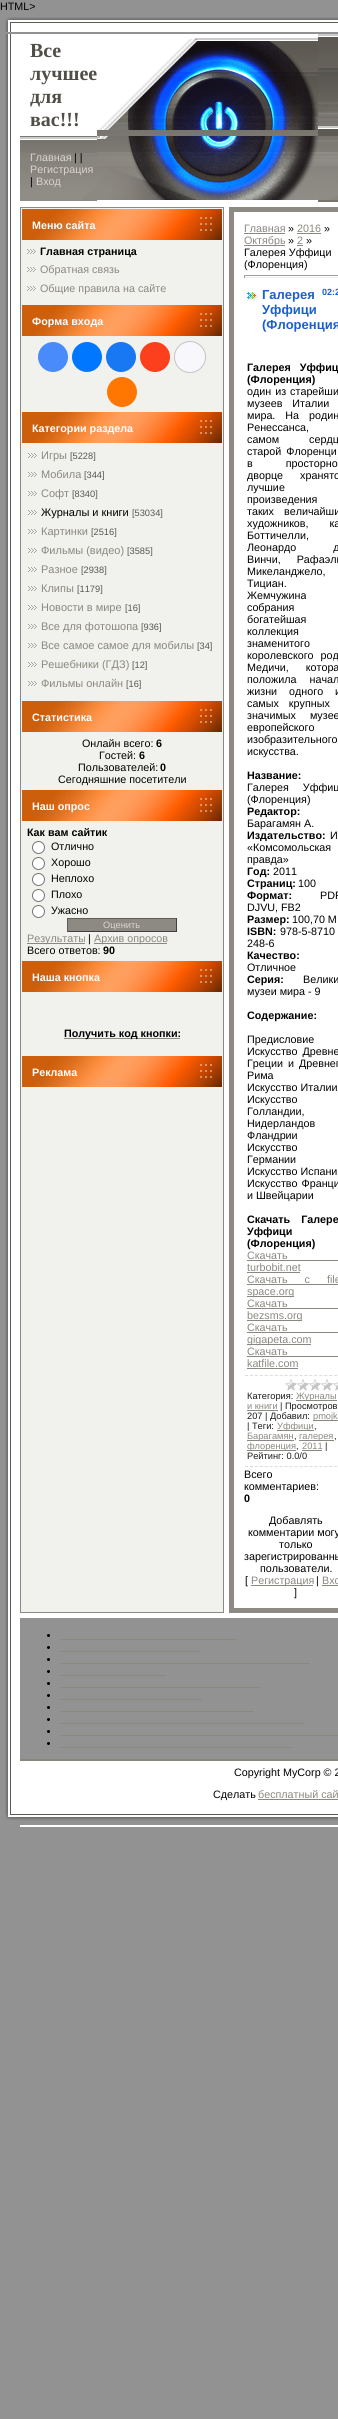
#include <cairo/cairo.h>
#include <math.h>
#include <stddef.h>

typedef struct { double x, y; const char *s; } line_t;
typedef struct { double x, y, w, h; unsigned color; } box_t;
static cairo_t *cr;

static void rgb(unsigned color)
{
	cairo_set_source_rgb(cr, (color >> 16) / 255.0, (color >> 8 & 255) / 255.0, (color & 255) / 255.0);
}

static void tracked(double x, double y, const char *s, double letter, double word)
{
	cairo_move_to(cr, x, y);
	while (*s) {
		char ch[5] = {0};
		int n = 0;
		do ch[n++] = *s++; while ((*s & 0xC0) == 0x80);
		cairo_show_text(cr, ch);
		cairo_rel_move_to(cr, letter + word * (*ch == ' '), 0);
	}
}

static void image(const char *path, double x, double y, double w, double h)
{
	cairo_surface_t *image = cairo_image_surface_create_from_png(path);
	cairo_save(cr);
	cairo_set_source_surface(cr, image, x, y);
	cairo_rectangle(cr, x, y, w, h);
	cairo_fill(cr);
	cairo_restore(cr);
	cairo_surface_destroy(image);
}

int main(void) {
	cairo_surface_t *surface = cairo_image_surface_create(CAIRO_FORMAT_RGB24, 338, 2419);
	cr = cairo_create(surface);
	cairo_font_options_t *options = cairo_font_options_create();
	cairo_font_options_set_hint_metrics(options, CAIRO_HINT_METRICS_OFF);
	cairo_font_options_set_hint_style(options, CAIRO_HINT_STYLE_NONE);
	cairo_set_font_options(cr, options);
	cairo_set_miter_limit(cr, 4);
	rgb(0x929292);
	cairo_paint(cr);
	image("img/1.png", 5, 17, 15, 15);
	image("img/2.png", 20, 17, 318, 15);
	image("img/3.png", 5, 34, 15, 1771);
	image("img/4.png", 20, 34, 298, 168);
	rgb(0xffffff);
	cairo_rectangle(cr, 20, 126, 77, 10);
	cairo_fill(cr);
	image("img/5.png", 97, 38, 221, 92);
	image("img/6.png", 318, 34, 20, 102);
	image("img/7.png", 20, 137, 77, 64);
	image("img/8.png", 97, 136, 221, 64);
	image("img/9.png", 318, 136, 20, 66);
	cairo_rectangle(cr, 20, 202, 318, 1416);
	cairo_fill(cr);
	rgb(0xf1f1ed);
	cairo_rectangle(cr, 20.5, 207.5, 203, 1405);
	cairo_fill_preserve(cr);
	rgb(0x8c8a82);
	cairo_set_line_width(cr, 1);
	cairo_stroke(cr);
	image("img/10.png", 22, 209, 200, 31);
	image("img/11.png", 27, 249, 9, 5);
	image("img/11.png", 27, 267, 9, 5);
	image("img/11.png", 27, 286, 9, 5);
	image("img/10.png", 22, 305, 200, 31);
	rgb(0x498bfa);
	cairo_arc(cr, 53, 357, 15, 0, 2 * M_PI);
	cairo_fill(cr);
	rgb(0x0077ff);
	cairo_arc(cr, 87, 357, 15, 0, 2 * M_PI);
	cairo_fill(cr);
	rgb(0x1877f2);
	cairo_arc(cr, 121, 357, 15, 0, 2 * M_PI);
	cairo_fill(cr);
	rgb(0xfc3f1d);
	cairo_arc(cr, 155, 357, 15, 0, 2 * M_PI);
	cairo_fill(cr);
	rgb(0xf8f8fc);
	cairo_arc(cr, 190, 357, 15.5, 0, 2 * M_PI);
	cairo_fill_preserve(cr);
	rgb(0xc4c4c4);
	cairo_stroke(cr);
	rgb(0xff7700);
	cairo_arc(cr, 122, 392, 15, 0, 2 * M_PI);
	cairo_fill(cr);
	image("img/10.png", 22, 412, 200, 31);
	image("img/11.png", 28, 453, 9, 5);
	image("img/11.png", 28, 472, 9, 5);
	image("img/11.png", 28, 491, 9, 5);
	image("img/11.png", 28, 510, 9, 5);
	image("img/11.png", 28, 529, 9, 5);
	image("img/11.png", 28, 548, 9, 5);
	image("img/11.png", 28, 567, 9, 5);
	image("img/11.png", 28, 586, 9, 5);
	image("img/11.png", 28, 605, 9, 5);
	image("img/11.png", 28, 624, 9, 5);
	image("img/11.png", 28, 643, 9, 5);
	image("img/11.png", 28, 662, 9, 5);
	image("img/11.png", 28, 681, 9, 5);
	image("img/10.png", 22, 701, 200, 31);
	image("img/10.png", 22, 790, 200, 31);
	rgb(0xffffff);
	cairo_arc(cr, 38.5, 847.5, 6, 0, 2 * M_PI);
	cairo_fill_preserve(cr);
	rgb(0x767676);
	cairo_stroke(cr);
	rgb(0xffffff);
	cairo_arc(cr, 38.5, 863.5, 6, 0, 2 * M_PI);
	cairo_fill_preserve(cr);
	rgb(0x767676);
	cairo_stroke(cr);
	rgb(0xffffff);
	cairo_arc(cr, 38.5, 879.5, 6, 0, 2 * M_PI);
	cairo_fill_preserve(cr);
	rgb(0x767676);
	cairo_stroke(cr);
	rgb(0xffffff);
	cairo_arc(cr, 38.5, 895.5, 6, 0, 2 * M_PI);
	cairo_fill_preserve(cr);
	rgb(0x767676);
	cairo_stroke(cr);
	rgb(0xffffff);
	cairo_arc(cr, 38.5, 911.5, 6, 0, 2 * M_PI);
	cairo_fill_preserve(cr);
	rgb(0x767676);
	cairo_stroke(cr);
	{
		static const box_t items[] = {
			{68, 919, 108, 12, 0x8d8a83},
			{67, 918, 110, 1, 0x615e58},
			{176, 918, 1, 14, 0x413f3b},
			{67, 931, 110, 1, 0x413f3b},
			{67, 918, 1, 14, 0x615e58},
			{27, 943, 58, 1, 0x8b8881},
			{94, 943, 73, 1, 0x8b8881},
		};
		for (size_t i = 0; i < sizeof items / sizeof *items; i++) {
			rgb(items[i].color);
			cairo_rectangle(cr, items[i].x, items[i].y, items[i].w, items[i].h);
			cairo_fill(cr);
		}
	}
	image("img/10.png", 22, 961, 200, 31);
	cairo_rectangle(cr, 64, 1038, 116, 1);
	cairo_fill(cr);
	image("img/10.png", 22, 1056, 200, 31);
	cairo_rectangle(cr, 231.5, 209.5, 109, 1401);
	rgb(0x8c8a82);
	cairo_set_line_width(cr, 5);
	cairo_stroke(cr);
	{
		static const box_t items[] = {
			{244, 233, 41, 1, 0x8b8881},
			{297, 233, 24, 1, 0x8b8881},
			{244, 245, 41, 1, 0x8b8881},
			{297, 245, 6, 1, 0x8b8881},
			{244, 275, 94, 1, 0x9f9f9f},
			{244, 277, 94, 1, 0xeeeeee},
			{244, 275, 1, 3, 0x9f9f9f},
		};
		for (size_t i = 0; i < sizeof items / sizeof *items; i++) {
			rgb(items[i].color);
			cairo_rectangle(cr, items[i].x, items[i].y, items[i].w, items[i].h);
			cairo_fill(cr);
		}
	}
	image("img/12.png", 247, 292, 11, 9);
	{
		static const box_t items[] = {
			{247, 1260, 91, 1, 0x8b8881},
			{247, 1272, 53, 1, 0x8b8881},
			{247, 1284, 91, 1, 0x8b8881},
			{247, 1296, 47, 1, 0x8b8881},
			{247, 1308, 91, 1, 0x8b8881},
			{247, 1320, 55, 1, 0x8b8881},
			{247, 1332, 91, 1, 0x8b8881},
			{247, 1344, 64, 1, 0x8b8881},
			{247, 1356, 91, 1, 0x8b8881},
			{247, 1368, 51, 1, 0x8b8881},
		};
		for (size_t i = 0; i < sizeof items / sizeof *items; i++) {
			rgb(items[i].color);
			cairo_rectangle(cr, items[i].x, items[i].y, items[i].w, items[i].h);
			cairo_fill(cr);
		}
	}
	cairo_new_path(cr);
	cairo_move_to(cr, 245, 1375.5);
	cairo_line_to(cr, 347, 1375.5);
	rgb(0xdddddd);
	cairo_set_line_width(cr, 1);
	cairo_set_dash(cr, (double[]){3, 1.95}, 2, 0);
	cairo_stroke(cr);
	cairo_new_path(cr);
	cairo_move_to(cr, 245, 1466.5);
	cairo_line_to(cr, 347, 1466.5);
	cairo_stroke(cr);
	image("img/13.png", 285, 1379, 53, 12);
	{
		static const box_t items[] = {
			{296, 1400, 41, 1, 0x8b8881},
			{247, 1410, 31, 1, 0x8b8881},
			{313, 1420, 25, 1, 0x8b8881},
			{277, 1430, 37, 1, 0x8b8881},
			{247, 1440, 47, 1, 0x8b8881},
			{299, 1440, 35, 1, 0x8b8881},
			{247, 1450, 49, 1, 0x8b8881},
			{302, 1450, 20, 1, 0x8b8881},
			{251, 1585, 62, 1, 0x8b8881},
			{322, 1585, 16, 1, 0x8b8881},
		};
		for (size_t i = 0; i < sizeof items / sizeof *items; i++) {
			rgb(items[i].color);
			cairo_rectangle(cr, items[i].x, items[i].y, items[i].w, items[i].h);
			cairo_fill(cr);
		}
	}
	rgb(0x000000);
	cairo_arc(cr, 48.5, 1635.5, 1.5, 0, 2 * M_PI);
	cairo_fill(cr);
	rgb(0x8b8881);
	cairo_rectangle(cr, 60, 1639, 177, 1);
	cairo_fill(cr);
	rgb(0x000000);
	cairo_arc(cr, 48.5, 1647.5, 1.5, 0, 2 * M_PI);
	cairo_fill(cr);
	rgb(0x8b8881);
	cairo_rectangle(cr, 60, 1651, 140, 1);
	cairo_fill(cr);
	rgb(0x000000);
	cairo_arc(cr, 48.5, 1659.5, 1.5, 0, 2 * M_PI);
	cairo_fill(cr);
	rgb(0x8b8881);
	cairo_rectangle(cr, 60, 1663, 250, 1);
	cairo_fill(cr);
	rgb(0x000000);
	cairo_arc(cr, 48.5, 1671.5, 1.5, 0, 2 * M_PI);
	cairo_fill(cr);
	rgb(0x8b8881);
	cairo_rectangle(cr, 60, 1675, 106, 1);
	cairo_fill(cr);
	rgb(0x000000);
	cairo_arc(cr, 48.5, 1683.5, 1.5, 0, 2 * M_PI);
	cairo_fill(cr);
	rgb(0x8b8881);
	cairo_rectangle(cr, 60, 1687, 201, 1);
	cairo_fill(cr);
	rgb(0x000000);
	cairo_arc(cr, 48.5, 1695.5, 1.5, 0, 2 * M_PI);
	cairo_fill(cr);
	rgb(0x8b8881);
	cairo_rectangle(cr, 60, 1699, 142, 1);
	cairo_fill(cr);
	rgb(0x000000);
	cairo_arc(cr, 48.5, 1707.5, 1.5, 0, 2 * M_PI);
	cairo_fill(cr);
	rgb(0x8b8881);
	cairo_rectangle(cr, 60, 1711, 194, 1);
	cairo_fill(cr);
	rgb(0x000000);
	cairo_arc(cr, 48.5, 1719.5, 1.5, 0, 2 * M_PI);
	cairo_fill(cr);
	rgb(0x8b8881);
	cairo_rectangle(cr, 60, 1723, 244, 1);
	cairo_fill(cr);
	rgb(0x000000);
	cairo_arc(cr, 48.5, 1731.5, 1.5, 0, 2 * M_PI);
	cairo_fill(cr);
	rgb(0x8b8881);
	cairo_rectangle(cr, 60, 1735, 278, 1);
	cairo_fill(cr);
	rgb(0x000000);
	cairo_arc(cr, 48.5, 1743.5, 1.5, 0, 2 * M_PI);
	cairo_fill(cr);
	{
		static const box_t items[] = {
			{60, 1747, 233, 1, 0x8b8881},
			{20, 1759, 318, 2, 0x898680},
			{20, 1761, 318, 44, 0xffffff},
			{258, 1799, 80, 1, 0x8b8881},
		};
		for (size_t i = 0; i < sizeof items / sizeof *items; i++) {
			rgb(items[i].color);
			cairo_rectangle(cr, items[i].x, items[i].y, items[i].w, items[i].h);
			cairo_fill(cr);
		}
	}
	image("img/14.png", 5, 1805, 15, 15);
	image("img/15.png", 20, 1805, 318, 22);
	cairo_select_font_face(cr, "Liberation Sans", CAIRO_FONT_SLANT_NORMAL, CAIRO_FONT_WEIGHT_NORMAL);
	cairo_set_font_size(cr, 10.75);
	rgb(0x000000);
	cairo_move_to(cr, 0, 10);
	cairo_show_text(cr, "HTML>");
	cairo_select_font_face(cr, "Liberation Serif", CAIRO_FONT_SLANT_NORMAL, CAIRO_FONT_WEIGHT_BOLD);
	cairo_set_font_size(cr, 20);
	rgb(0x514e48);
	{
		static const line_t items[] = {
			{30, 57, "Все"},
			{30, 80, "лучшее"},
			{30, 103, "для"},
			{30, 126, "вас!!!"},
		};
		for (size_t i = 0; i < sizeof items / sizeof *items; i++) {
			cairo_move_to(cr, items[i].x, items[i].y);
			cairo_show_text(cr, items[i].s);
		}
	}
	cairo_select_font_face(cr, "Liberation Sans", CAIRO_FONT_SLANT_NORMAL, CAIRO_FONT_WEIGHT_NORMAL);
	cairo_set_font_size(cr, 10.75);
	rgb(0xdad5ca);
	cairo_move_to(cr, 30, 161);
	cairo_show_text(cr, "Главная");
	rgb(0x000000);
	cairo_move_to(cr, 74, 161);
	cairo_show_text(cr, "| |");
	rgb(0xdad5ca);
	cairo_move_to(cr, 30, 173);
	cairo_show_text(cr, "Регистрация");
	rgb(0x000000);
	cairo_move_to(cr, 30, 185);
	cairo_show_text(cr, "|");
	rgb(0xdad5ca);
	cairo_move_to(cr, 36, 185);
	cairo_show_text(cr, "Вход");
	cairo_select_font_face(cr, "Liberation Sans", CAIRO_FONT_SLANT_NORMAL, CAIRO_FONT_WEIGHT_BOLD);
	rgb(0xffffff);
	cairo_move_to(cr, 32, 229);
	cairo_show_text(cr, "Меню сайта");
	rgb(0x000000);
	cairo_move_to(cr, 40, 255);
	cairo_show_text(cr, "Главная страница");
	cairo_select_font_face(cr, "Liberation Sans", CAIRO_FONT_SLANT_NORMAL, CAIRO_FONT_WEIGHT_NORMAL);
	rgb(0x8b8881);
	cairo_move_to(cr, 40, 273);
	cairo_show_text(cr, "Обратная связь");
	cairo_move_to(cr, 40, 292);
	cairo_show_text(cr, "Общие правила на сайте");
	cairo_select_font_face(cr, "Liberation Sans", CAIRO_FONT_SLANT_NORMAL, CAIRO_FONT_WEIGHT_BOLD);
	rgb(0xffffff);
	cairo_move_to(cr, 32, 325);
	cairo_show_text(cr, "Форма входа");
	cairo_move_to(cr, 32, 432);
	cairo_show_text(cr, "Категории раздела");
	cairo_select_font_face(cr, "Liberation Sans", CAIRO_FONT_SLANT_NORMAL, CAIRO_FONT_WEIGHT_NORMAL);
	cairo_set_font_size(cr, 11);
	rgb(0x8b8881);
	cairo_move_to(cr, 41, 459);
	cairo_show_text(cr, "Игры");
	cairo_set_font_size(cr, 9.25);
	rgb(0x555555);
	cairo_move_to(cr, 70, 459);
	cairo_show_text(cr, "[5228]");
	cairo_set_font_size(cr, 11);
	rgb(0x8b8881);
	cairo_move_to(cr, 41, 478);
	cairo_show_text(cr, "Мобила");
	cairo_set_font_size(cr, 9.25);
	rgb(0x555555);
	cairo_move_to(cr, 84, 478);
	cairo_show_text(cr, "[344]");
	cairo_set_font_size(cr, 11);
	rgb(0x8b8881);
	cairo_move_to(cr, 41, 497);
	cairo_show_text(cr, "Софт");
	cairo_set_font_size(cr, 9.25);
	rgb(0x555555);
	cairo_move_to(cr, 72, 497);
	cairo_show_text(cr, "[8340]");
	cairo_set_font_size(cr, 11);
	rgb(0x000000);
	cairo_move_to(cr, 41, 516);
	cairo_show_text(cr, "Журналы и книги");
	cairo_set_font_size(cr, 9.25);
	rgb(0x555555);
	cairo_move_to(cr, 132, 516);
	cairo_show_text(cr, "[53034]");
	cairo_set_font_size(cr, 11);
	rgb(0x8b8881);
	cairo_move_to(cr, 41, 535);
	cairo_show_text(cr, "Картинки");
	cairo_set_font_size(cr, 9.25);
	rgb(0x555555);
	cairo_move_to(cr, 91, 535);
	cairo_show_text(cr, "[2516]");
	cairo_set_font_size(cr, 11);
	rgb(0x8b8881);
	cairo_move_to(cr, 41, 554);
	cairo_show_text(cr, "Фильмы (видео)");
	cairo_set_font_size(cr, 9.25);
	rgb(0x555555);
	cairo_move_to(cr, 127, 554);
	cairo_show_text(cr, "[3585]");
	cairo_set_font_size(cr, 11);
	rgb(0x8b8881);
	cairo_move_to(cr, 41, 573);
	cairo_show_text(cr, "Разное");
	cairo_set_font_size(cr, 9.25);
	rgb(0x555555);
	cairo_move_to(cr, 81, 573);
	cairo_show_text(cr, "[2938]");
	cairo_set_font_size(cr, 11);
	rgb(0x8b8881);
	cairo_move_to(cr, 41, 592);
	cairo_show_text(cr, "Клипы");
	cairo_set_font_size(cr, 9.25);
	rgb(0x555555);
	cairo_move_to(cr, 77, 592);
	cairo_show_text(cr, "[1179]");
	cairo_set_font_size(cr, 11);
	rgb(0x8b8881);
	cairo_move_to(cr, 41, 611);
	cairo_show_text(cr, "Новости в мире");
	cairo_set_font_size(cr, 9.25);
	rgb(0x555555);
	cairo_move_to(cr, 125, 611);
	cairo_show_text(cr, "[16]");
	cairo_set_font_size(cr, 11);
	rgb(0x8b8881);
	cairo_move_to(cr, 41, 630);
	cairo_show_text(cr, "Все для фотошопа");
	cairo_set_font_size(cr, 9.25);
	rgb(0x555555);
	cairo_move_to(cr, 141, 630);
	cairo_show_text(cr, "[936]");
	cairo_set_font_size(cr, 11);
	rgb(0x8b8881);
	cairo_move_to(cr, 41, 649);
	cairo_show_text(cr, "Все самое самое для мобилы");
	cairo_set_font_size(cr, 9.25);
	rgb(0x555555);
	cairo_move_to(cr, 197, 649);
	cairo_show_text(cr, "[34]");
	cairo_set_font_size(cr, 11);
	rgb(0x8b8881);
	cairo_move_to(cr, 41, 668);
	cairo_show_text(cr, "Решебники (ГДЗ)");
	cairo_set_font_size(cr, 9.25);
	rgb(0x555555);
	cairo_move_to(cr, 132, 668);
	cairo_show_text(cr, "[12]");
	cairo_set_font_size(cr, 11);
	rgb(0x8b8881);
	cairo_move_to(cr, 41, 687);
	cairo_show_text(cr, "Фильмы онлайн");
	cairo_set_font_size(cr, 9.25);
	rgb(0x555555);
	cairo_move_to(cr, 126, 687);
	cairo_show_text(cr, "[16]");
	cairo_select_font_face(cr, "Liberation Sans", CAIRO_FONT_SLANT_NORMAL, CAIRO_FONT_WEIGHT_BOLD);
	cairo_set_font_size(cr, 10.75);
	rgb(0xffffff);
	cairo_move_to(cr, 32, 721);
	cairo_show_text(cr, "Статистика");
	cairo_select_font_face(cr, "Liberation Sans", CAIRO_FONT_SLANT_NORMAL, CAIRO_FONT_WEIGHT_NORMAL);
	rgb(0x000000);
	cairo_move_to(cr, 82, 747);
	cairo_show_text(cr, "Онлайн всего:");
	cairo_select_font_face(cr, "Liberation Sans", CAIRO_FONT_SLANT_NORMAL, CAIRO_FONT_WEIGHT_BOLD);
	cairo_move_to(cr, 156, 747);
	cairo_show_text(cr, "6");
	cairo_select_font_face(cr, "Liberation Sans", CAIRO_FONT_SLANT_NORMAL, CAIRO_FONT_WEIGHT_NORMAL);
	cairo_move_to(cr, 99, 759);
	cairo_show_text(cr, "Гостей:");
	cairo_select_font_face(cr, "Liberation Sans", CAIRO_FONT_SLANT_NORMAL, CAIRO_FONT_WEIGHT_BOLD);
	cairo_move_to(cr, 139, 759);
	cairo_show_text(cr, "6");
	cairo_select_font_face(cr, "Liberation Sans", CAIRO_FONT_SLANT_NORMAL, CAIRO_FONT_WEIGHT_NORMAL);
	cairo_move_to(cr, 78, 771);
	cairo_show_text(cr, "Пользователей:");
	cairo_select_font_face(cr, "Liberation Sans", CAIRO_FONT_SLANT_NORMAL, CAIRO_FONT_WEIGHT_BOLD);
	cairo_move_to(cr, 160, 771);
	cairo_show_text(cr, "0");
	cairo_select_font_face(cr, "Liberation Sans", CAIRO_FONT_SLANT_NORMAL, CAIRO_FONT_WEIGHT_NORMAL);
	cairo_move_to(cr, 58, 783);
	cairo_show_text(cr, "Сегодняшние посетители");
	cairo_select_font_face(cr, "Liberation Sans", CAIRO_FONT_SLANT_NORMAL, CAIRO_FONT_WEIGHT_BOLD);
	rgb(0xffffff);
	cairo_move_to(cr, 32, 810);
	cairo_show_text(cr, "Наш опрос");
	rgb(0x000000);
	cairo_move_to(cr, 27, 836);
	cairo_show_text(cr, "Как вам сайтик");
	cairo_select_font_face(cr, "Liberation Sans", CAIRO_FONT_SLANT_NORMAL, CAIRO_FONT_WEIGHT_NORMAL);
	{
		static const line_t items[] = {
			{51, 850, "Отлично"},
			{51, 866, "Хорошо"},
			{51, 882, "Неплохо"},
			{51, 898, "Плохо"},
			{51, 914, "Ужасно"},
		};
		for (size_t i = 0; i < sizeof items / sizeof *items; i++) {
			cairo_move_to(cr, items[i].x, items[i].y);
			cairo_show_text(cr, items[i].s);
		}
	}
	cairo_set_font_size(cr, 9.25);
	rgb(0xdad5ca);
	cairo_move_to(cr, 103, 928);
	cairo_show_text(cr, "Оценить");
	cairo_set_font_size(cr, 10.75);
	rgb(0x8b8881);
	cairo_move_to(cr, 27, 942);
	cairo_show_text(cr, "Результаты");
	rgb(0x000000);
	cairo_move_to(cr, 88, 942);
	cairo_show_text(cr, "|");
	rgb(0x8b8881);
	cairo_move_to(cr, 94, 942);
	cairo_show_text(cr, "Архив опросов");
	rgb(0x000000);
	cairo_move_to(cr, 27, 954);
	cairo_show_text(cr, "Всего ответов:");
	cairo_select_font_face(cr, "Liberation Sans", CAIRO_FONT_SLANT_NORMAL, CAIRO_FONT_WEIGHT_BOLD);
	cairo_move_to(cr, 103, 954);
	cairo_show_text(cr, "90");
	rgb(0xffffff);
	cairo_move_to(cr, 32, 981);
	cairo_show_text(cr, "Наша кнопка");
	rgb(0x000000);
	cairo_move_to(cr, 64, 1037);
	cairo_show_text(cr, "Получить код кнопки:");
	rgb(0xffffff);
	cairo_move_to(cr, 32, 1076);
	cairo_show_text(cr, "Реклама");
	cairo_select_font_face(cr, "Liberation Sans", CAIRO_FONT_SLANT_NORMAL, CAIRO_FONT_WEIGHT_NORMAL);
	rgb(0x8b8881);
	cairo_move_to(cr, 244, 232);
	cairo_show_text(cr, "Главная");
	rgb(0x000000);
	cairo_move_to(cr, 288, 232);
	cairo_show_text(cr, "»");
	rgb(0x8b8881);
	cairo_move_to(cr, 297, 232);
	cairo_show_text(cr, "2016");
	rgb(0x000000);
	cairo_move_to(cr, 324, 232);
	cairo_show_text(cr, "»");
	rgb(0x8b8881);
	cairo_move_to(cr, 244, 244);
	cairo_show_text(cr, "Октябрь");
	rgb(0x000000);
	cairo_move_to(cr, 288, 244);
	cairo_show_text(cr, "»");
	rgb(0x8b8881);
	cairo_move_to(cr, 297, 244);
	cairo_show_text(cr, "2");
	rgb(0x000000);
	{
		static const line_t items[] = {
			{306, 244, "»"},
			{244, 256, "Галерея Уффици"},
			{244, 268, "(Флоренция)"},
		};
		for (size_t i = 0; i < sizeof items / sizeof *items; i++) {
			cairo_move_to(cr, items[i].x, items[i].y);
			cairo_show_text(cr, items[i].s);
		}
	}
	cairo_select_font_face(cr, "Liberation Sans", CAIRO_FONT_SLANT_NORMAL, CAIRO_FONT_WEIGHT_BOLD);
	cairo_set_font_size(cr, 13);
	rgb(0x1b5fcf);
	cairo_move_to(cr, 262, 299);
	cairo_show_text(cr, "Галерея");
	cairo_set_font_size(cr, 9);
	cairo_move_to(cr, 322, 295);
	cairo_show_text(cr, "02:2");
	cairo_set_font_size(cr, 13);
	cairo_move_to(cr, 262, 314);
	cairo_show_text(cr, "Уффици");
	cairo_move_to(cr, 262, 329);
	cairo_show_text(cr, "(Флоренция");
	cairo_set_font_size(cr, 10.75);
	rgb(0x000000);
	tracked(247, 371, "Галерея Уффиц", 0, 6);
	cairo_move_to(cr, 247, 383);
	cairo_show_text(cr, "(Флоренция)");
	cairo_select_font_face(cr, "Liberation Sans", CAIRO_FONT_SLANT_NORMAL, CAIRO_FONT_WEIGHT_NORMAL);
	tracked(247, 395, "один из старейши", 0, 1);
	tracked(247, 407, "музеев Италии", 0, 7);
	tracked(247, 419, "мира. На родин", 0, 7);
	tracked(247, 431, "Ренессанса,", 0, 27);
	tracked(247, 443, "самом сердц", 0, 27);
	tracked(247, 455, "старой Флоренци", 0, 2);
	tracked(247, 467, "в просторно", 0, 30);
	tracked(247, 479, "дворце хранятс", 0, 14);
	cairo_move_to(cr, 247, 491);
	cairo_show_text(cr, "лучшие");
	cairo_move_to(cr, 247, 503);
	cairo_show_text(cr, "произведения");
	tracked(247, 515, "таких величайши", 0, 7);
	tracked(247, 527, "художников, ка", 0, 18);
	cairo_move_to(cr, 247, 539);
	cairo_show_text(cr, "Боттичелли,");
	tracked(247, 551, "Леонардо д", 0, 34);
	tracked(247, 563, "Винчи, Рафаэль", 0, 13);
	{
		static const line_t items[] = {
			{247, 575, "Микеланджело,"},
			{247, 587, "Тициан."},
			{247, 599, "Жемчужина"},
		};
		for (size_t i = 0; i < sizeof items / sizeof *items; i++) {
			cairo_move_to(cr, items[i].x, items[i].y);
			cairo_show_text(cr, items[i].s);
		}
	}
	tracked(247, 611, "собрания", 0, 44);
	{
		static const line_t items[] = {
			{247, 623, "богатейшая"},
			{247, 635, "коллекция"},
			{247, 647, "знаменитого"},
		};
		for (size_t i = 0; i < sizeof items / sizeof *items; i++) {
			cairo_move_to(cr, items[i].x, items[i].y);
			cairo_show_text(cr, items[i].s);
		}
	}
	tracked(247, 659, "королевского род", 0, 4);
	tracked(247, 671, "Медичи, котора", 0, 14);
	tracked(247, 683, "положила начал", 0, 10);
	tracked(247, 695, "жизни одного и", 0, 9);
	tracked(247, 707, "самых крупных", 0, 7);
	tracked(247, 719, "значимых музее", 0, 11);
	{
		static const line_t items[] = {
			{247, 731, "европейского"},
			{247, 743, "изобразительного"},
			{247, 755, "искусства."},
		};
		for (size_t i = 0; i < sizeof items / sizeof *items; i++) {
			cairo_move_to(cr, items[i].x, items[i].y);
			cairo_show_text(cr, items[i].s);
		}
	}
	cairo_select_font_face(cr, "Liberation Sans", CAIRO_FONT_SLANT_NORMAL, CAIRO_FONT_WEIGHT_BOLD);
	cairo_move_to(cr, 247, 779);
	cairo_show_text(cr, "Название:");
	cairo_select_font_face(cr, "Liberation Sans", CAIRO_FONT_SLANT_NORMAL, CAIRO_FONT_WEIGHT_NORMAL);
	tracked(247, 791, "Галерея Уффиц", 0, 11);
	cairo_move_to(cr, 247, 803);
	cairo_show_text(cr, "(Флоренция)");
	cairo_select_font_face(cr, "Liberation Sans", CAIRO_FONT_SLANT_NORMAL, CAIRO_FONT_WEIGHT_BOLD);
	cairo_move_to(cr, 247, 815);
	cairo_show_text(cr, "Редактор:");
	cairo_select_font_face(cr, "Liberation Sans", CAIRO_FONT_SLANT_NORMAL, CAIRO_FONT_WEIGHT_NORMAL);
	cairo_move_to(cr, 247, 827);
	cairo_show_text(cr, "Барагамян А.");
	cairo_select_font_face(cr, "Liberation Sans", CAIRO_FONT_SLANT_NORMAL, CAIRO_FONT_WEIGHT_BOLD);
	cairo_move_to(cr, 247, 839);
	cairo_show_text(cr, "Издательство:");
	cairo_select_font_face(cr, "Liberation Sans", CAIRO_FONT_SLANT_NORMAL, CAIRO_FONT_WEIGHT_NORMAL);
	{
		static const line_t items[] = {
			{330, 839, "И"},
			{247, 851, "«Комсомольская"},
			{247, 863, "правда»"},
		};
		for (size_t i = 0; i < sizeof items / sizeof *items; i++) {
			cairo_move_to(cr, items[i].x, items[i].y);
			cairo_show_text(cr, items[i].s);
		}
	}
	cairo_select_font_face(cr, "Liberation Sans", CAIRO_FONT_SLANT_NORMAL, CAIRO_FONT_WEIGHT_BOLD);
	cairo_move_to(cr, 247, 875);
	cairo_show_text(cr, "Год:");
	cairo_select_font_face(cr, "Liberation Sans", CAIRO_FONT_SLANT_NORMAL, CAIRO_FONT_WEIGHT_NORMAL);
	cairo_move_to(cr, 273, 875);
	cairo_show_text(cr, "2011");
	cairo_select_font_face(cr, "Liberation Sans", CAIRO_FONT_SLANT_NORMAL, CAIRO_FONT_WEIGHT_BOLD);
	cairo_move_to(cr, 247, 887);
	cairo_show_text(cr, "Страниц:");
	cairo_select_font_face(cr, "Liberation Sans", CAIRO_FONT_SLANT_NORMAL, CAIRO_FONT_WEIGHT_NORMAL);
	cairo_move_to(cr, 298, 887);
	cairo_show_text(cr, "100");
	cairo_select_font_face(cr, "Liberation Sans", CAIRO_FONT_SLANT_NORMAL, CAIRO_FONT_WEIGHT_BOLD);
	cairo_move_to(cr, 247, 899);
	cairo_show_text(cr, "Формат:");
	cairo_select_font_face(cr, "Liberation Sans", CAIRO_FONT_SLANT_NORMAL, CAIRO_FONT_WEIGHT_NORMAL);
	cairo_move_to(cr, 320, 899);
	cairo_show_text(cr, "PDF");
	cairo_move_to(cr, 247, 911);
	cairo_show_text(cr, "DJVU, FB2");
	cairo_select_font_face(cr, "Liberation Sans", CAIRO_FONT_SLANT_NORMAL, CAIRO_FONT_WEIGHT_BOLD);
	cairo_move_to(cr, 247, 923);
	cairo_show_text(cr, "Размер:");
	cairo_select_font_face(cr, "Liberation Sans", CAIRO_FONT_SLANT_NORMAL, CAIRO_FONT_WEIGHT_NORMAL);
	cairo_move_to(cr, 292, 923);
	cairo_show_text(cr, "100,70 М");
	cairo_select_font_face(cr, "Liberation Sans", CAIRO_FONT_SLANT_NORMAL, CAIRO_FONT_WEIGHT_BOLD);
	cairo_move_to(cr, 247, 935);
	cairo_show_text(cr, "ISBN:");
	cairo_select_font_face(cr, "Liberation Sans", CAIRO_FONT_SLANT_NORMAL, CAIRO_FONT_WEIGHT_NORMAL);
	cairo_move_to(cr, 280, 935);
	cairo_show_text(cr, "978-5-8710");
	cairo_move_to(cr, 247, 947);
	cairo_show_text(cr, "248-6");
	cairo_select_font_face(cr, "Liberation Sans", CAIRO_FONT_SLANT_NORMAL, CAIRO_FONT_WEIGHT_BOLD);
	cairo_move_to(cr, 247, 959);
	cairo_show_text(cr, "Качество:");
	cairo_select_font_face(cr, "Liberation Sans", CAIRO_FONT_SLANT_NORMAL, CAIRO_FONT_WEIGHT_NORMAL);
	cairo_move_to(cr, 247, 971);
	cairo_show_text(cr, "Отличное");
	cairo_select_font_face(cr, "Liberation Sans", CAIRO_FONT_SLANT_NORMAL, CAIRO_FONT_WEIGHT_BOLD);
	cairo_move_to(cr, 247, 983);
	cairo_show_text(cr, "Серия:");
	cairo_select_font_face(cr, "Liberation Sans", CAIRO_FONT_SLANT_NORMAL, CAIRO_FONT_WEIGHT_NORMAL);
	cairo_move_to(cr, 303, 983);
	cairo_show_text(cr, "Велики");
	cairo_move_to(cr, 247, 995);
	cairo_show_text(cr, "музеи мира - 9");
	cairo_select_font_face(cr, "Liberation Sans", CAIRO_FONT_SLANT_NORMAL, CAIRO_FONT_WEIGHT_BOLD);
	cairo_move_to(cr, 247, 1019);
	cairo_show_text(cr, "Содержание:");
	cairo_select_font_face(cr, "Liberation Sans", CAIRO_FONT_SLANT_NORMAL, CAIRO_FONT_WEIGHT_NORMAL);
	cairo_move_to(cr, 247, 1043);
	cairo_show_text(cr, "Предисловие");
	tracked(247, 1055, "Искусство Древне", 0, 2);
	tracked(247, 1067, "Греции и Древнег", 0, 2);
	{
		static const line_t items[] = {
			{247, 1079, "Рима"},
			{247, 1091, "Искусство Италии"},
			{247, 1103, "Искусство"},
			{247, 1115, "Голландии,"},
		};
		for (size_t i = 0; i < sizeof items / sizeof *items; i++) {
			cairo_move_to(cr, items[i].x, items[i].y);
			cairo_show_text(cr, items[i].s);
		}
	}
	tracked(247, 1127, "Нидерландов", 0, 21);
	{
		static const line_t items[] = {
			{247, 1139, "Фландрии"},
			{247, 1151, "Искусство"},
			{247, 1163, "Германии"},
			{247, 1175, "Искусство Испани"},
		};
		for (size_t i = 0; i < sizeof items / sizeof *items; i++) {
			cairo_move_to(cr, items[i].x, items[i].y);
			cairo_show_text(cr, items[i].s);
		}
	}
	tracked(247, 1187, "Искусство Франци", 0, 1);
	cairo_move_to(cr, 247, 1199);
	cairo_show_text(cr, "и Швейцарии");
	cairo_select_font_face(cr, "Liberation Sans", CAIRO_FONT_SLANT_NORMAL, CAIRO_FONT_WEIGHT_BOLD);
	tracked(247, 1223, "Скачать Галере", 0, 8);
	cairo_move_to(cr, 247, 1235);
	cairo_show_text(cr, "Уффици");
	cairo_move_to(cr, 247, 1247);
	cairo_show_text(cr, "(Флоренция)");
	cairo_select_font_face(cr, "Liberation Sans", CAIRO_FONT_SLANT_NORMAL, CAIRO_FONT_WEIGHT_NORMAL);
	rgb(0x8b8881);
	tracked(247, 1259, "Скачать", 0, 49);
	cairo_move_to(cr, 247, 1271);
	cairo_show_text(cr, "turbobit.net");
	tracked(247, 1283, "Скачать с file", 0, 14);
	cairo_move_to(cr, 247, 1295);
	cairo_show_text(cr, "space.org");
	tracked(247, 1307, "Скачать", 0, 49);
	cairo_move_to(cr, 247, 1319);
	cairo_show_text(cr, "bezsms.org");
	tracked(247, 1331, "Скачать", 0, 49);
	cairo_move_to(cr, 247, 1343);
	cairo_show_text(cr, "gigapeta.com");
	tracked(247, 1355, "Скачать", 0, 49);
	cairo_move_to(cr, 247, 1367);
	cairo_show_text(cr, "katfile.com");
	cairo_set_font_size(cr, 9.25);
	rgb(0x1a1a1a);
	cairo_move_to(cr, 247, 1399);
	cairo_show_text(cr, "Категория:");
	rgb(0x8b8881);
	cairo_move_to(cr, 296, 1399);
	cairo_show_text(cr, "Журналы");
	cairo_move_to(cr, 247, 1409);
	cairo_show_text(cr, "и книги");
	rgb(0x1a1a1a);
	cairo_move_to(cr, 280, 1409);
	cairo_show_text(cr, "| Просмотров");
	cairo_move_to(cr, 247, 1419);
	cairo_show_text(cr, "207 | Добавил:");
	rgb(0x8b8881);
	cairo_move_to(cr, 313, 1419);
	cairo_show_text(cr, "pmojk");
	rgb(0x1a1a1a);
	cairo_move_to(cr, 247, 1429);
	cairo_show_text(cr, "| Теги:");
	rgb(0x8b8881);
	cairo_move_to(cr, 277, 1429);
	cairo_show_text(cr, "Уффици");
	rgb(0x1a1a1a);
	cairo_move_to(cr, 314, 1429);
	cairo_show_text(cr, ",");
	rgb(0x8b8881);
	cairo_move_to(cr, 247, 1439);
	cairo_show_text(cr, "Барагамян");
	rgb(0x1a1a1a);
	cairo_move_to(cr, 294, 1439);
	cairo_show_text(cr, ",");
	rgb(0x8b8881);
	cairo_move_to(cr, 299, 1439);
	cairo_show_text(cr, "галерея");
	rgb(0x1a1a1a);
	cairo_move_to(cr, 334, 1439);
	cairo_show_text(cr, ",");
	rgb(0x8b8881);
	cairo_move_to(cr, 247, 1449);
	cairo_show_text(cr, "флоренция");
	rgb(0x1a1a1a);
	cairo_move_to(cr, 296, 1449);
	cairo_show_text(cr, ",");
	rgb(0x8b8881);
	cairo_move_to(cr, 302, 1449);
	cairo_show_text(cr, "2011");
	rgb(0x1a1a1a);
	cairo_move_to(cr, 325, 1449);
	cairo_show_text(cr, "|");
	cairo_move_to(cr, 247, 1459);
	cairo_show_text(cr, "Рейтинг: 0.0/0");
	cairo_set_font_size(cr, 10.75);
	rgb(0x000000);
	cairo_move_to(cr, 244, 1478);
	cairo_show_text(cr, "Всего");
	cairo_move_to(cr, 244, 1490);
	cairo_show_text(cr, "комментариев:");
	cairo_select_font_face(cr, "Liberation Sans", CAIRO_FONT_SLANT_NORMAL, CAIRO_FONT_WEIGHT_BOLD);
	cairo_move_to(cr, 244, 1502);
	cairo_show_text(cr, "0");
	cairo_select_font_face(cr, "Liberation Sans", CAIRO_FONT_SLANT_NORMAL, CAIRO_FONT_WEIGHT_NORMAL);
	{
		static const line_t items[] = {
			{269, 1524, "Добавлять"},
			{248, 1536, "комментарии могу"},
			{279, 1548, "только"},
			{244, 1560, "зарегистрированны"},
			{260, 1572, "пользователи."},
			{245, 1584, "["},
		};
		for (size_t i = 0; i < sizeof items / sizeof *items; i++) {
			cairo_move_to(cr, items[i].x, items[i].y);
			cairo_show_text(cr, items[i].s);
		}
	}
	rgb(0x8b8881);
	cairo_move_to(cr, 251, 1584);
	cairo_show_text(cr, "Регистрация");
	rgb(0x000000);
	cairo_move_to(cr, 316, 1584);
	cairo_show_text(cr, "|");
	rgb(0x8b8881);
	cairo_move_to(cr, 322, 1584);
	cairo_show_text(cr, "Вхо");
	rgb(0x000000);
	{
		static const line_t items[] = {
			{294, 1596, "]"},
			{234, 1776, "Copyright MyCorp © 2"},
			{213, 1798, "Сделать"},
		};
		for (size_t i = 0; i < sizeof items / sizeof *items; i++) {
			cairo_move_to(cr, items[i].x, items[i].y);
			cairo_show_text(cr, items[i].s);
		}
	}
	rgb(0x8b8881);
	cairo_move_to(cr, 258, 1798);
	cairo_show_text(cr, "бесплатный сай");
	cairo_surface_write_to_png(surface, "page.png");
	cairo_font_options_destroy(options);
	cairo_destroy(cr);
	cairo_surface_destroy(surface);
	return 0;
}
